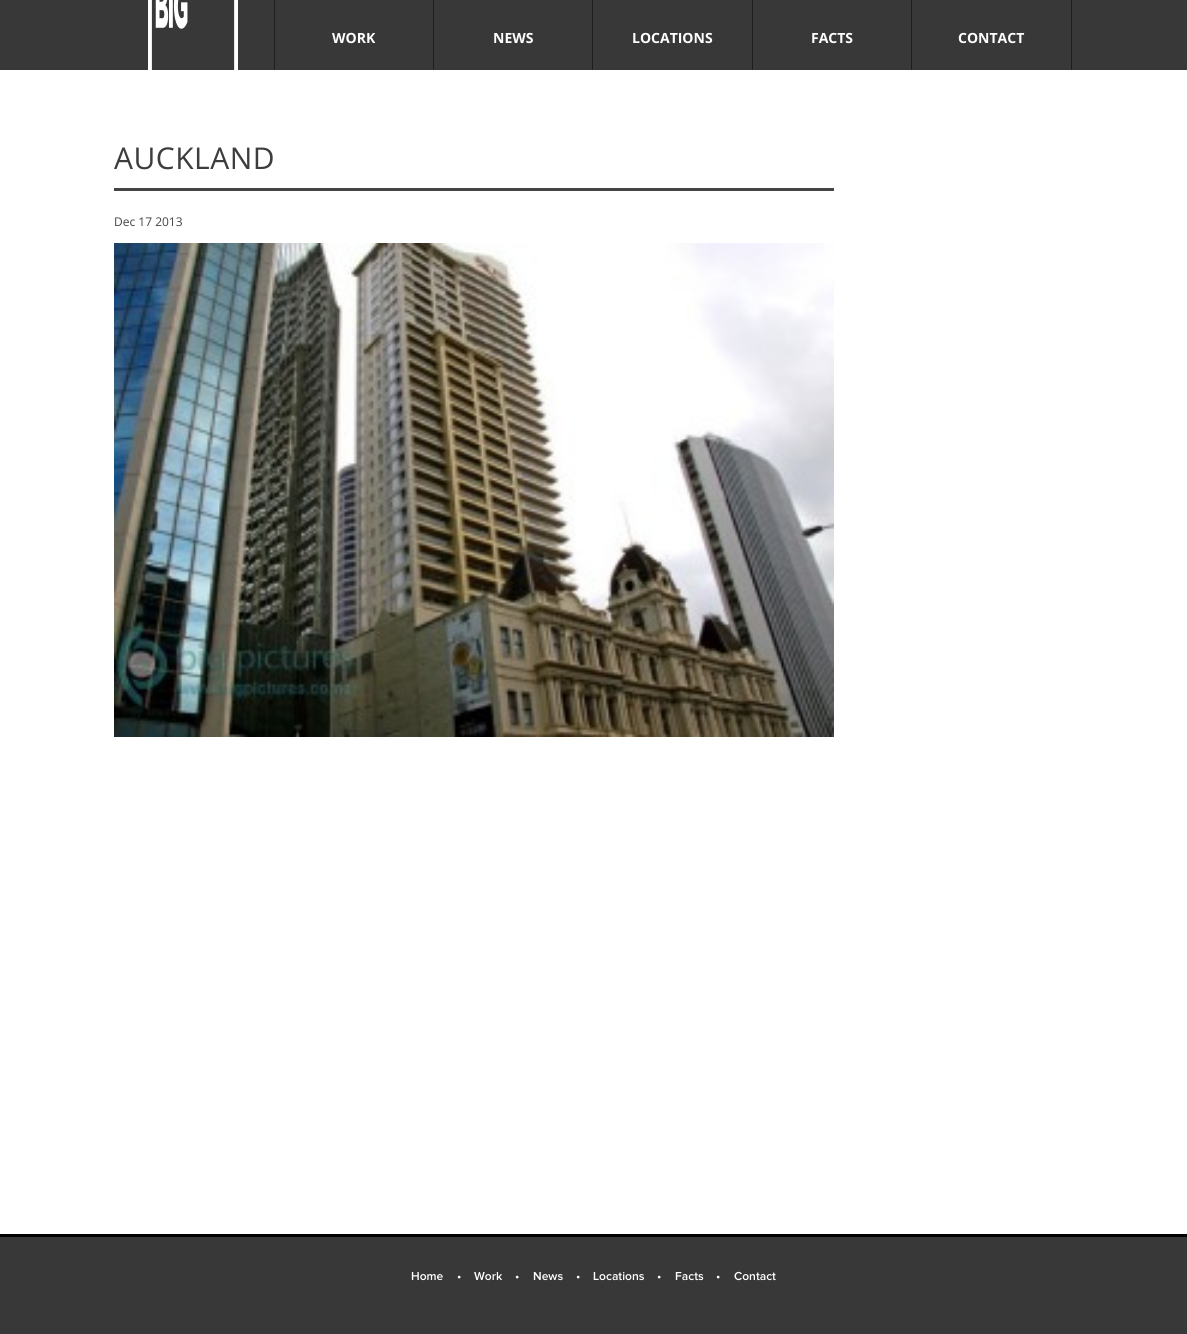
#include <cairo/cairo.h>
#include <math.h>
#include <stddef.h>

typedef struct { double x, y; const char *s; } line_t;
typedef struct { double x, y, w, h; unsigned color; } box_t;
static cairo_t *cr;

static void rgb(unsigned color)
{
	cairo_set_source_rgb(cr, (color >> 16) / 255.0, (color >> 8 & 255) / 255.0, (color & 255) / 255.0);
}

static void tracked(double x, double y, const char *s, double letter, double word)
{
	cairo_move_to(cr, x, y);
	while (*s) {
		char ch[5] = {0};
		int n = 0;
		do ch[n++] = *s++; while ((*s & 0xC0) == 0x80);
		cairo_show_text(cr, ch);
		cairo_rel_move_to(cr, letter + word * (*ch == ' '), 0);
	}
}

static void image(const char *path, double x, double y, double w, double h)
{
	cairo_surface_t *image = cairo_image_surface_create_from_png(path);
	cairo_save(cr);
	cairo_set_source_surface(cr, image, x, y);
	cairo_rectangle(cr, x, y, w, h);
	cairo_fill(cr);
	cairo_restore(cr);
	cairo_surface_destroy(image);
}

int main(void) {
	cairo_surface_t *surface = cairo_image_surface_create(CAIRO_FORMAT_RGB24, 1187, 1334);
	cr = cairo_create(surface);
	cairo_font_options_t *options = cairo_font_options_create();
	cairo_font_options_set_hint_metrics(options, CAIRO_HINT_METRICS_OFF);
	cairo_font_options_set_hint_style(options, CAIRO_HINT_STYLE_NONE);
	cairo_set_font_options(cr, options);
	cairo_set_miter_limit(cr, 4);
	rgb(0xffffff);
	cairo_paint(cr);
	rgb(0x383838);
	cairo_rectangle(cr, 0, 0, 1187, 70);
	cairo_fill(cr);
	image("img/1.png", 148, 0, 90, 70);
	{
		static const box_t items[] = {
			{274, 0, 1, 70, 0x1f1f1f},
			{433, 0, 1, 70, 0x1f1f1f},
			{592, 0, 1, 70, 0x1f1f1f},
			{752, 0, 1, 70, 0x1f1f1f},
			{1071, 0, 1, 70, 0x1f1f1f},
			{911, 0, 1, 70, 0x1f1f1f},
			{114, 188, 720, 3, 0x444444},
		};
		for (size_t i = 0; i < sizeof items / sizeof *items; i++) {
			rgb(items[i].color);
			cairo_rectangle(cr, items[i].x, items[i].y, items[i].w, items[i].h);
			cairo_fill(cr);
		}
	}
	image("img/2.png", 114, 243, 720, 494);
	rgb(0x383838);
	cairo_rectangle(cr, 0, 1237, 1187, 97);
	cairo_fill(cr);
	rgb(0x000000);
	cairo_rectangle(cr, 0, 1234, 1187, 3);
	cairo_fill(cr);
	cairo_select_font_face(cr, "Open Sans", CAIRO_FONT_SLANT_NORMAL, CAIRO_FONT_WEIGHT_BOLD);
	cairo_set_font_size(cr, 14);
	rgb(0xffffff);
	{
		static const line_t items[] = {
			{332, 43, "WORK"},
			{493, 43, "NEWS"},
			{632, 43, "LOCATIONS"},
			{811, 43, "FACTS"},
			{958, 43, "CONTACT"},
		};
		for (size_t i = 0; i < sizeof items / sizeof *items; i++) {
			cairo_move_to(cr, items[i].x, items[i].y);
			cairo_show_text(cr, items[i].s);
		}
	}
	cairo_select_font_face(cr, "Open Sans", CAIRO_FONT_SLANT_NORMAL, CAIRO_FONT_WEIGHT_NORMAL);
	cairo_set_font_size(cr, 30);
	rgb(0x3d3d3d);
	tracked(114, 169, "AUCKLAND", 0.5, 0);
	cairo_set_font_size(cr, 12);
	rgb(0x444444);
	cairo_move_to(cr, 114, 226);
	cairo_show_text(cr, "Dec 17 2013");
	cairo_select_font_face(cr, "Proxima Nova SemiBold", CAIRO_FONT_SLANT_NORMAL, CAIRO_FONT_WEIGHT_NORMAL);
	rgb(0xffffff);
	{
		static const line_t items[] = {
			{411, 1280, "Home"},
			{457, 1280, "•"},
			{474, 1280, "Work"},
			{515, 1280, "•"},
			{533, 1280, "News"},
			{576, 1280, "•"},
			{593, 1280, "Locations"},
			{657, 1280, "•"},
			{675, 1280, "Facts"},
			{716, 1280, "•"},
			{734, 1280, "Contact"},
		};
		for (size_t i = 0; i < sizeof items / sizeof *items; i++) {
			cairo_move_to(cr, items[i].x, items[i].y);
			cairo_show_text(cr, items[i].s);
		}
	}
	cairo_surface_write_to_png(surface, "page.png");
	cairo_font_options_destroy(options);
	cairo_destroy(cr);
	cairo_surface_destroy(surface);
	return 0;
}
